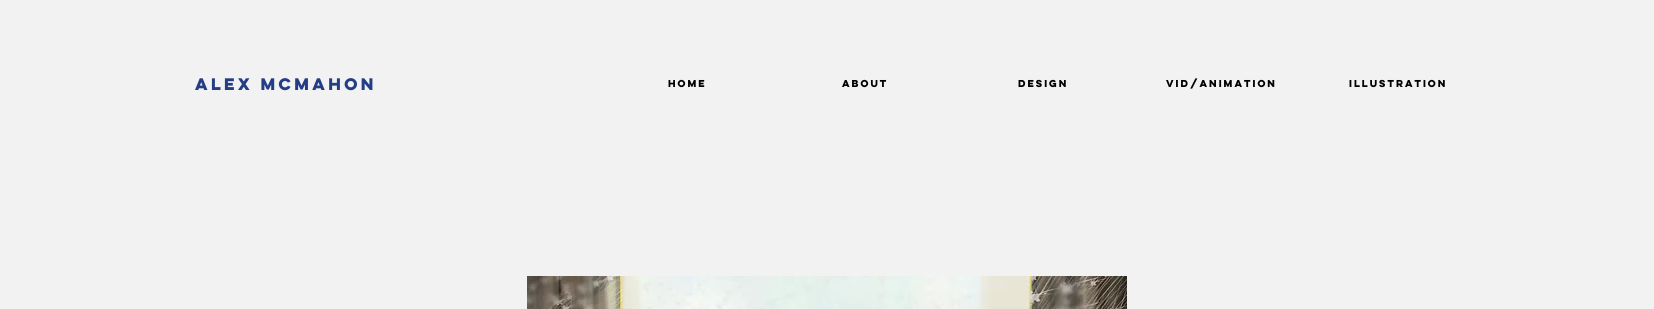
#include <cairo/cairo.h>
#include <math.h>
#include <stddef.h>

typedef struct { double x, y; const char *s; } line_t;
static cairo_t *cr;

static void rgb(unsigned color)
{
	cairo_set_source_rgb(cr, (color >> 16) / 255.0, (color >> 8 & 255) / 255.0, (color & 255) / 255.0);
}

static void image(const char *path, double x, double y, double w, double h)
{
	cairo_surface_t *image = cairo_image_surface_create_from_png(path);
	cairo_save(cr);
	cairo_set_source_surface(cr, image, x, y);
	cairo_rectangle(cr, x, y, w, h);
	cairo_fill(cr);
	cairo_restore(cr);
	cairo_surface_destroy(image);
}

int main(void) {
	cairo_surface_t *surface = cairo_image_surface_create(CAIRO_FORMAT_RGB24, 1654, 309);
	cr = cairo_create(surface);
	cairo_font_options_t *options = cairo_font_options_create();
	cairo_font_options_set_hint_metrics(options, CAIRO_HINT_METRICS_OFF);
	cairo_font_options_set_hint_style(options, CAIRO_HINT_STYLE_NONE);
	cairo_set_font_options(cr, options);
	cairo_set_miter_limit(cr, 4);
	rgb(0xf2f2f2);
	cairo_paint(cr);
	image("img/1.png", 527, 276, 600, 33);
	cairo_select_font_face(cr, "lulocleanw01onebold", CAIRO_FONT_SLANT_NORMAL, CAIRO_FONT_WEIGHT_BOLD);
	cairo_set_font_size(cr, 15);
	rgb(0x243e85);
	cairo_move_to(cr, 195, 90);
	cairo_show_text(cr, "Alex McMahon");
	cairo_set_font_size(cr, 9);
	rgb(0x000000);
	{
		static const line_t items[] = {
			{668, 87, "Home"},
			{842, 87, "ABOUT"},
			{1018, 87, "DESIGN"},
			{1166, 87, "VID/ANIMATION"},
			{1349, 87, "ILLUSTRATION"},
		};
		for (size_t i = 0; i < sizeof items / sizeof *items; i++) {
			cairo_move_to(cr, items[i].x, items[i].y);
			cairo_show_text(cr, items[i].s);
		}
	}
	cairo_surface_write_to_png(surface, "page.png");
	cairo_font_options_destroy(options);
	cairo_destroy(cr);
	cairo_surface_destroy(surface);
	return 0;
}
